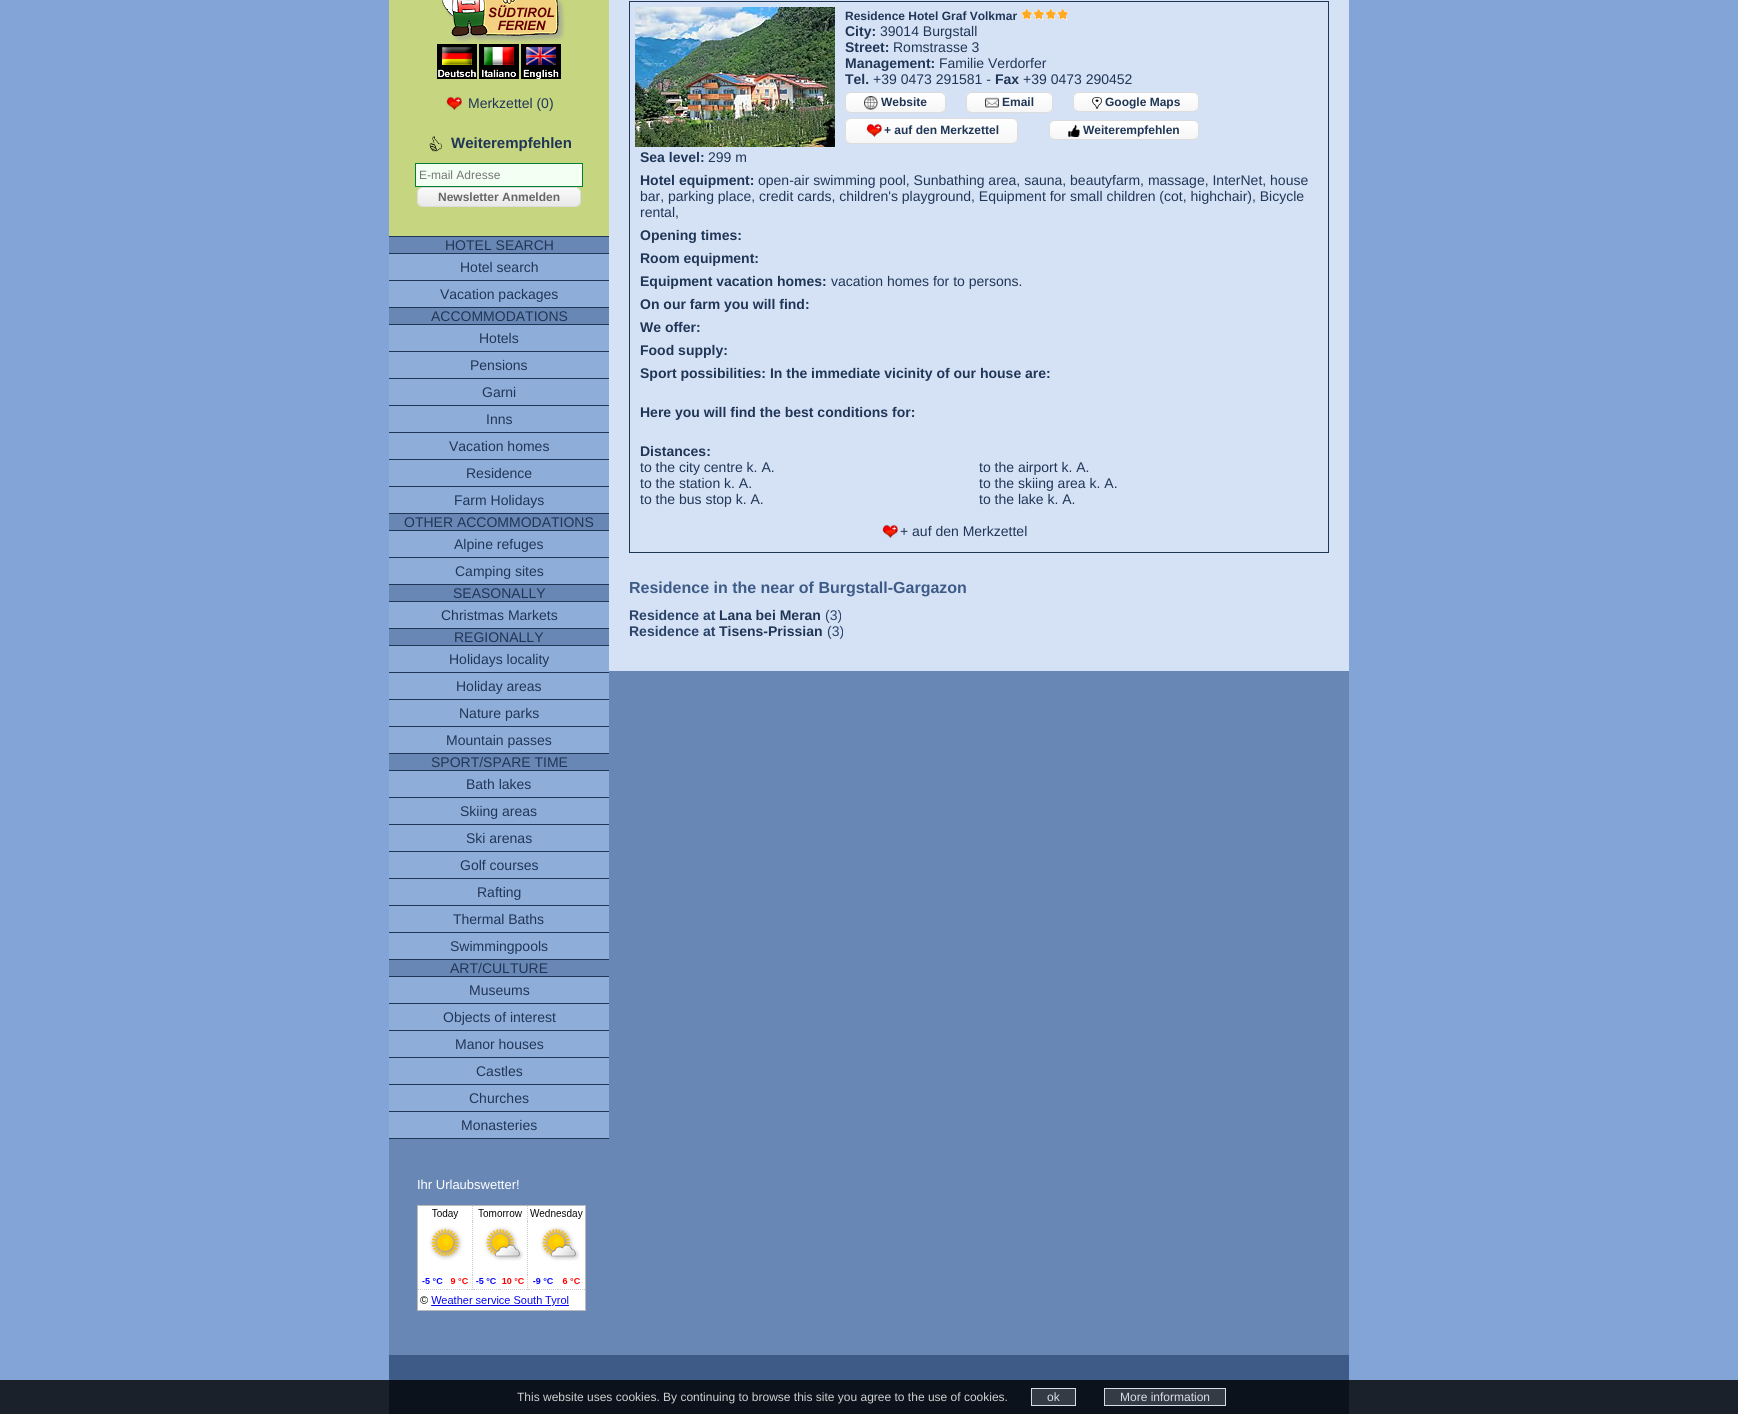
#include <cairo/cairo.h>
#include <math.h>
#include <stddef.h>

typedef struct { double x, y; const char *s; } line_t;
typedef struct { double x, y, w, h; unsigned color; } box_t;
static cairo_t *cr;

static void rgb(unsigned color)
{
	cairo_set_source_rgb(cr, (color >> 16) / 255.0, (color >> 8 & 255) / 255.0, (color & 255) / 255.0);
}

static void rrect(double x, double y, double w, double h, double r)
{
	cairo_new_sub_path(cr);
	cairo_arc(cr, x + w - r, y + h - r, r, 0, M_PI / 2);
	cairo_arc(cr, x + r, y + h - r, r, M_PI / 2, M_PI);
	cairo_arc(cr, x + r, y + r, r, M_PI, 1.5 * M_PI);
	cairo_arc(cr, x + w - r, y + r, r, 1.5 * M_PI, 2 * M_PI);
	cairo_close_path(cr);
}

static void image(const char *path, double x, double y, double w, double h)
{
	cairo_surface_t *image = cairo_image_surface_create_from_png(path);
	cairo_save(cr);
	cairo_set_source_surface(cr, image, x, y);
	cairo_rectangle(cr, x, y, w, h);
	cairo_fill(cr);
	cairo_restore(cr);
	cairo_surface_destroy(image);
}

int main(void) {
	cairo_surface_t *surface = cairo_image_surface_create(CAIRO_FORMAT_RGB24, 1738, 1414);
	cr = cairo_create(surface);
	cairo_font_options_t *options = cairo_font_options_create();
	cairo_font_options_set_hint_metrics(options, CAIRO_HINT_METRICS_OFF);
	cairo_font_options_set_hint_style(options, CAIRO_HINT_STYLE_NONE);
	cairo_set_font_options(cr, options);
	cairo_set_miter_limit(cr, 4);
	cairo_pattern_t *gradient;
	rgb(0x83a4d6);
	cairo_paint(cr);
	rgb(0x1a212b);
	cairo_rectangle(cr, 0, 1380, 1738, 34);
	cairo_fill(cr);
	rgb(0xc6d580);
	cairo_rectangle(cr, 389, 0, 220, 236);
	cairo_fill(cr);
	image("img/1.png", 442, 0, 123, 43);
	image("img/2.png", 437, 44, 40, 35);
	image("img/3.png", 479, 44, 40, 35);
	image("img/4.png", 521, 44, 40, 35);
	image("img/5.png", 446, 96, 16, 14);
	image("img/6.png", 429, 136, 13, 16);
	rgb(0xf4fff4);
	cairo_rectangle(cr, 415.5, 163.5, 167, 23);
	cairo_fill_preserve(cr);
	rgb(0x008030);
	cairo_set_line_width(cr, 1);
	cairo_stroke(cr);
	cairo_save(cr);
	rrect(417, 187, 164, 20, 6);
	cairo_clip(cr);
	gradient = cairo_pattern_create_linear(499, 188, 499, 206);
	cairo_pattern_add_color_stop_rgba(gradient, 0.05, 0.976, 0.976, 0.976, 1);
	cairo_pattern_add_color_stop_rgba(gradient, 1, 0.914, 0.914, 0.914, 1);
	cairo_set_source(cr, gradient);
	cairo_pattern_destroy(gradient);
	cairo_rectangle(cr, 417, 188, 164, 18);
	cairo_fill(cr);
	cairo_restore(cr);
	rgb(0xffffff);
	cairo_new_path(cr);
	cairo_move_to(cr, 423, 189);
	cairo_line_to(cr, 575, 189);
	cairo_curve_to(cr, 578, 189, 580, 191, 580, 194);
	cairo_line_to(cr, 580, 193);
	cairo_curve_to(cr, 580, 190, 578, 188, 575, 188);
	cairo_line_to(cr, 423, 188);
	cairo_curve_to(cr, 420, 188, 418, 190, 418, 193);
	cairo_line_to(cr, 418, 194);
	cairo_curve_to(cr, 418, 191, 420, 189, 423, 189);
	cairo_close_path(cr);
	cairo_fill(cr);
	rrect(417.5, 187.5, 163, 19, 5.5);
	rgb(0xdcdcdc);
	cairo_stroke(cr);
	{
		static const box_t items[] = {
			{389, 236, 220, 1, 0x203657},
			{389, 237, 960, 1118, 0x6987b5},
			{389, 253, 220, 1, 0x203657},
			{389, 280, 220, 1, 0x203657},
			{389, 254, 220, 26, 0x8fadd9},
			{389, 307, 220, 1, 0x203657},
			{389, 281, 220, 26, 0x8fadd9},
			{389, 324, 220, 1, 0x203657},
			{389, 351, 220, 1, 0x203657},
			{389, 325, 220, 26, 0x8fadd9},
			{389, 378, 220, 1, 0x203657},
			{389, 352, 220, 26, 0x8fadd9},
			{389, 405, 220, 1, 0x203657},
			{389, 379, 220, 26, 0x8fadd9},
			{389, 432, 220, 1, 0x203657},
			{389, 406, 220, 26, 0x8fadd9},
			{389, 459, 220, 1, 0x203657},
			{389, 433, 220, 26, 0x8fadd9},
			{389, 486, 220, 1, 0x203657},
			{389, 460, 220, 26, 0x8fadd9},
			{389, 513, 220, 1, 0x203657},
			{389, 487, 220, 26, 0x8fadd9},
			{389, 530, 220, 1, 0x203657},
			{389, 557, 220, 1, 0x203657},
			{389, 531, 220, 26, 0x8fadd9},
			{389, 584, 220, 1, 0x203657},
			{389, 558, 220, 26, 0x8fadd9},
			{389, 601, 220, 1, 0x203657},
			{389, 628, 220, 1, 0x203657},
			{389, 602, 220, 26, 0x8fadd9},
			{389, 645, 220, 1, 0x203657},
			{389, 672, 220, 1, 0x203657},
			{389, 646, 220, 26, 0x8fadd9},
			{389, 699, 220, 1, 0x203657},
			{389, 673, 220, 26, 0x8fadd9},
			{389, 726, 220, 1, 0x203657},
			{389, 700, 220, 26, 0x8fadd9},
			{389, 753, 220, 1, 0x203657},
			{389, 727, 220, 26, 0x8fadd9},
			{389, 770, 220, 1, 0x203657},
			{389, 797, 220, 1, 0x203657},
			{389, 771, 220, 26, 0x8fadd9},
			{389, 824, 220, 1, 0x203657},
			{389, 798, 220, 26, 0x8fadd9},
			{389, 851, 220, 1, 0x203657},
			{389, 825, 220, 26, 0x8fadd9},
			{389, 878, 220, 1, 0x203657},
			{389, 852, 220, 26, 0x8fadd9},
			{389, 905, 220, 1, 0x203657},
			{389, 879, 220, 26, 0x8fadd9},
			{389, 932, 220, 1, 0x203657},
			{389, 906, 220, 26, 0x8fadd9},
			{389, 959, 220, 1, 0x203657},
			{389, 933, 220, 26, 0x8fadd9},
			{389, 976, 220, 1, 0x203657},
			{389, 1003, 220, 1, 0x203657},
			{389, 977, 220, 26, 0x8fadd9},
			{389, 1030, 220, 1, 0x203657},
			{389, 1004, 220, 26, 0x8fadd9},
			{389, 1057, 220, 1, 0x203657},
			{389, 1031, 220, 26, 0x8fadd9},
			{389, 1084, 220, 1, 0x203657},
			{389, 1058, 220, 26, 0x8fadd9},
			{389, 1111, 220, 1, 0x203657},
			{389, 1085, 220, 26, 0x8fadd9},
			{389, 1138, 220, 1, 0x203657},
			{389, 1112, 220, 26, 0x8fadd9},
		};
		for (size_t i = 0; i < sizeof items / sizeof *items; i++) {
			rgb(items[i].color);
			cairo_rectangle(cr, items[i].x, items[i].y, items[i].w, items[i].h);
			cairo_fill(cr);
		}
	}
	image("img/7.png", 417, 1205, 169, 106);
	rgb(0xd5e2f5);
	cairo_rectangle(cr, 609, 0, 740, 671);
	cairo_fill(cr);
	cairo_rectangle(cr, 629.5, 1.5, 699, 551);
	rgb(0x203657);
	cairo_stroke(cr);
	image("img/8.png", 635, 7, 200, 140);
	image("img/9.png", 1021, 9, 48, 11);
	cairo_save(cr);
	rrect(845, 92, 101, 21, 6);
	cairo_clip(cr);
	gradient = cairo_pattern_create_linear(896, 93, 896, 112);
	cairo_pattern_add_color_stop_rgba(gradient, 0.05, 1, 1, 1, 1);
	cairo_pattern_add_color_stop_rgba(gradient, 1, 0.965, 0.965, 0.965, 1);
	cairo_set_source(cr, gradient);
	cairo_pattern_destroy(gradient);
	cairo_rectangle(cr, 845, 93, 101, 19);
	cairo_fill(cr);
	cairo_restore(cr);
	rgb(0xffffff);
	cairo_new_path(cr);
	cairo_move_to(cr, 851, 94);
	cairo_line_to(cr, 940, 94);
	cairo_curve_to(cr, 943, 94, 945, 96, 945, 99);
	cairo_curve_to(cr, 945, 89, 931, 93, 925, 93);
	cairo_line_to(cr, 866, 93);
	cairo_curve_to(cr, 860, 93, 846, 89, 846, 99);
	cairo_curve_to(cr, 846, 96, 848, 94, 851, 94);
	cairo_close_path(cr);
	cairo_fill(cr);
	rrect(845.5, 92.5, 100, 20, 5.5);
	rgb(0xdcdcdc);
	cairo_stroke(cr);
	image("img/10.png", 864, 96, 14, 14);
	cairo_save(cr);
	rrect(966, 92, 87, 21, 6);
	cairo_clip(cr);
	gradient = cairo_pattern_create_linear(1010, 93, 1010, 112);
	cairo_pattern_add_color_stop_rgba(gradient, 0.05, 1, 1, 1, 1);
	cairo_pattern_add_color_stop_rgba(gradient, 1, 0.965, 0.965, 0.965, 1);
	cairo_set_source(cr, gradient);
	cairo_pattern_destroy(gradient);
	cairo_rectangle(cr, 966, 93, 87, 19);
	cairo_fill(cr);
	cairo_restore(cr);
	rgb(0xffffff);
	cairo_new_path(cr);
	cairo_move_to(cr, 972, 94);
	cairo_line_to(cr, 1047, 94);
	cairo_curve_to(cr, 1050, 94, 1052, 96, 1052, 99);
	cairo_curve_to(cr, 1052, 90, 1040, 93, 1034, 93);
	cairo_line_to(cr, 984, 93);
	cairo_curve_to(cr, 979, 93, 967, 90, 967, 99);
	cairo_curve_to(cr, 967, 96, 969, 94, 972, 94);
	cairo_close_path(cr);
	cairo_fill(cr);
	rrect(966.5, 92.5, 86, 20, 5.5);
	rgb(0xdcdcdc);
	cairo_stroke(cr);
	image("img/11.png", 985, 97, 14, 11);
	cairo_save(cr);
	rrect(1073, 92, 126, 20, 6);
	cairo_clip(cr);
	gradient = cairo_pattern_create_linear(1136, 93, 1136, 111);
	cairo_pattern_add_color_stop_rgba(gradient, 0.05, 1, 1, 1, 1);
	cairo_pattern_add_color_stop_rgba(gradient, 1, 0.965, 0.965, 0.965, 1);
	cairo_set_source(cr, gradient);
	cairo_pattern_destroy(gradient);
	cairo_rectangle(cr, 1073, 93, 126, 18);
	cairo_fill(cr);
	cairo_restore(cr);
	rgb(0xffffff);
	cairo_new_path(cr);
	cairo_move_to(cr, 1079, 94);
	cairo_line_to(cr, 1193, 94);
	cairo_curve_to(cr, 1196, 94, 1198, 96, 1198, 99);
	cairo_curve_to(cr, 1198, 88, 1178, 93, 1174, 93);
	cairo_line_to(cr, 1098, 93);
	cairo_curve_to(cr, 1094, 93, 1074, 88, 1074, 99);
	cairo_curve_to(cr, 1074, 96, 1076, 94, 1079, 94);
	cairo_close_path(cr);
	cairo_fill(cr);
	rrect(1073.5, 92.5, 125, 19, 5.5);
	rgb(0xdcdcdc);
	cairo_stroke(cr);
	image("img/12.png", 1092, 97, 10, 12);
	cairo_save(cr);
	rrect(845, 118, 173, 26, 6);
	cairo_clip(cr);
	gradient = cairo_pattern_create_linear(932, 119, 932, 143);
	cairo_pattern_add_color_stop_rgba(gradient, 0.05, 1, 1, 1, 1);
	cairo_pattern_add_color_stop_rgba(gradient, 1, 0.965, 0.965, 0.965, 1);
	cairo_set_source(cr, gradient);
	cairo_pattern_destroy(gradient);
	cairo_rectangle(cr, 845, 119, 173, 24);
	cairo_fill(cr);
	cairo_restore(cr);
	rrect(845.5, 118.5, 172, 25, 5.5);
	cairo_stroke(cr);
	image("img/13.png", 866, 123, 16, 14);
	cairo_save(cr);
	rrect(1049, 120, 150, 20, 6);
	cairo_clip(cr);
	gradient = cairo_pattern_create_linear(1124, 121, 1124, 139);
	cairo_pattern_add_color_stop_rgba(gradient, 0.05, 1, 1, 1, 1);
	cairo_pattern_add_color_stop_rgba(gradient, 1, 0.965, 0.965, 0.965, 1);
	cairo_set_source(cr, gradient);
	cairo_pattern_destroy(gradient);
	cairo_rectangle(cr, 1049, 121, 150, 18);
	cairo_fill(cr);
	cairo_restore(cr);
	rrect(1049.5, 120.5, 149, 19, 5.5);
	cairo_stroke(cr);
	image("img/14.png", 1068, 125, 12, 12);
	image("img/15.png", 882, 524, 16, 14);
	rgb(0x3e5b87);
	cairo_rectangle(cr, 389, 1355, 960, 25);
	cairo_fill(cr);
	rgb(0x0c121b);
	cairo_rectangle(cr, 389, 1380, 960, 34);
	cairo_fill(cr);
	rgb(0x353b44);
	cairo_rectangle(cr, 1031.5, 1388.5, 44, 17);
	cairo_fill_preserve(cr);
	rgb(0xd8dee7);
	cairo_stroke(cr);
	rgb(0x353b44);
	cairo_rectangle(cr, 1104.5, 1388.5, 121, 17);
	cairo_fill_preserve(cr);
	rgb(0xd8dee7);
	cairo_stroke(cr);
	cairo_select_font_face(cr, "Liberation Sans", CAIRO_FONT_SLANT_NORMAL, CAIRO_FONT_WEIGHT_NORMAL);
	cairo_set_font_size(cr, 14);
	rgb(0x203657);
	cairo_move_to(cr, 468, 108);
	cairo_show_text(cr, "Merkzettel (0)");
	cairo_select_font_face(cr, "Liberation Sans", CAIRO_FONT_SLANT_NORMAL, CAIRO_FONT_WEIGHT_BOLD);
	cairo_set_font_size(cr, 15);
	cairo_move_to(cr, 451, 148);
	cairo_show_text(cr, "Weiterempfehlen");
	cairo_select_font_face(cr, "Liberation Sans", CAIRO_FONT_SLANT_NORMAL, CAIRO_FONT_WEIGHT_NORMAL);
	cairo_set_font_size(cr, 12);
	rgb(0x757575);
	cairo_move_to(cr, 419, 179);
	cairo_show_text(cr, "E-mail Adresse");
	cairo_select_font_face(cr, "Liberation Sans", CAIRO_FONT_SLANT_NORMAL, CAIRO_FONT_WEIGHT_BOLD);
	rgb(0x666666);
	cairo_move_to(cr, 438, 201);
	cairo_show_text(cr, "Newsletter Anmelden");
	cairo_select_font_face(cr, "Liberation Sans", CAIRO_FONT_SLANT_NORMAL, CAIRO_FONT_WEIGHT_NORMAL);
	cairo_set_font_size(cr, 14);
	rgb(0x203657);
	{
		static const line_t items[] = {
			{445, 250, "HOTEL SEARCH"},
			{460, 272, "Hotel search"},
			{440, 299, "Vacation packages"},
			{431, 321, "ACCOMMODATIONS"},
			{479, 343, "Hotels"},
			{470, 370, "Pensions"},
			{482, 397, "Garni"},
			{486, 424, "Inns"},
			{449, 451, "Vacation homes"},
			{466, 478, "Residence"},
			{454, 505, "Farm Holidays"},
			{404, 527, "OTHER ACCOMMODATIONS"},
			{454, 549, "Alpine refuges"},
			{455, 576, "Camping sites"},
			{453, 598, "SEASONALLY"},
			{441, 620, "Christmas Markets"},
			{454, 642, "REGIONALLY"},
			{449, 664, "Holidays locality"},
			{456, 691, "Holiday areas"},
			{459, 718, "Nature parks"},
			{446, 745, "Mountain passes"},
			{431, 767, "SPORT/SPARE TIME"},
			{466, 789, "Bath lakes"},
			{460, 816, "Skiing areas"},
			{466, 843, "Ski arenas"},
			{460, 870, "Golf courses"},
			{477, 897, "Rafting"},
			{453, 924, "Thermal Baths"},
			{450, 951, "Swimmingpools"},
			{450, 973, "ART/CULTURE"},
			{469, 995, "Museums"},
			{443, 1022, "Objects of interest"},
			{455, 1049, "Manor houses"},
			{476, 1076, "Castles"},
			{469, 1103, "Churches"},
			{461, 1130, "Monasteries"},
		};
		for (size_t i = 0; i < sizeof items / sizeof *items; i++) {
			cairo_move_to(cr, items[i].x, items[i].y);
			cairo_show_text(cr, items[i].s);
		}
	}
	cairo_set_font_size(cr, 13);
	rgb(0xffffff);
	cairo_move_to(cr, 417, 1189);
	cairo_show_text(cr, "Ihr Urlaubswetter!");
	cairo_select_font_face(cr, "Liberation Sans", CAIRO_FONT_SLANT_NORMAL, CAIRO_FONT_WEIGHT_BOLD);
	cairo_set_font_size(cr, 12);
	rgb(0x203657);
	cairo_move_to(cr, 845, 20);
	cairo_show_text(cr, "Residence Hotel Graf Volkmar");
	cairo_set_font_size(cr, 14);
	cairo_move_to(cr, 845, 36);
	cairo_show_text(cr, "City:");
	cairo_select_font_face(cr, "Liberation Sans", CAIRO_FONT_SLANT_NORMAL, CAIRO_FONT_WEIGHT_NORMAL);
	cairo_move_to(cr, 880, 36);
	cairo_show_text(cr, "39014 Burgstall");
	cairo_select_font_face(cr, "Liberation Sans", CAIRO_FONT_SLANT_NORMAL, CAIRO_FONT_WEIGHT_BOLD);
	cairo_move_to(cr, 845, 52);
	cairo_show_text(cr, "Street:");
	cairo_select_font_face(cr, "Liberation Sans", CAIRO_FONT_SLANT_NORMAL, CAIRO_FONT_WEIGHT_NORMAL);
	cairo_move_to(cr, 893, 52);
	cairo_show_text(cr, "Romstrasse 3");
	cairo_select_font_face(cr, "Liberation Sans", CAIRO_FONT_SLANT_NORMAL, CAIRO_FONT_WEIGHT_BOLD);
	cairo_move_to(cr, 845, 68);
	cairo_show_text(cr, "Management:");
	cairo_select_font_face(cr, "Liberation Sans", CAIRO_FONT_SLANT_NORMAL, CAIRO_FONT_WEIGHT_NORMAL);
	cairo_move_to(cr, 939, 68);
	cairo_show_text(cr, "Familie Verdorfer");
	cairo_select_font_face(cr, "Liberation Sans", CAIRO_FONT_SLANT_NORMAL, CAIRO_FONT_WEIGHT_BOLD);
	cairo_move_to(cr, 845, 84);
	cairo_show_text(cr, "Tel.");
	cairo_select_font_face(cr, "Liberation Sans", CAIRO_FONT_SLANT_NORMAL, CAIRO_FONT_WEIGHT_NORMAL);
	cairo_move_to(cr, 873, 84);
	cairo_show_text(cr, "+39 0473 291581 -");
	cairo_select_font_face(cr, "Liberation Sans", CAIRO_FONT_SLANT_NORMAL, CAIRO_FONT_WEIGHT_BOLD);
	cairo_move_to(cr, 995, 84);
	cairo_show_text(cr, "Fax");
	cairo_select_font_face(cr, "Liberation Sans", CAIRO_FONT_SLANT_NORMAL, CAIRO_FONT_WEIGHT_NORMAL);
	cairo_move_to(cr, 1023, 84);
	cairo_show_text(cr, "+39 0473 290452");
	cairo_select_font_face(cr, "Liberation Sans", CAIRO_FONT_SLANT_NORMAL, CAIRO_FONT_WEIGHT_BOLD);
	cairo_set_font_size(cr, 12);
	{
		static const line_t items[] = {
			{881, 106, "Website"},
			{1002, 106, "Email"},
			{1105, 106, "Google Maps"},
			{884, 134, "+ auf den Merkzettel"},
			{1083, 134, "Weiterempfehlen"},
		};
		for (size_t i = 0; i < sizeof items / sizeof *items; i++) {
			cairo_move_to(cr, items[i].x, items[i].y);
			cairo_show_text(cr, items[i].s);
		}
	}
	cairo_set_font_size(cr, 14);
	cairo_move_to(cr, 640, 162);
	cairo_show_text(cr, "Sea level:");
	cairo_select_font_face(cr, "Liberation Sans", CAIRO_FONT_SLANT_NORMAL, CAIRO_FONT_WEIGHT_NORMAL);
	cairo_move_to(cr, 708, 162);
	cairo_show_text(cr, "299 m");
	cairo_select_font_face(cr, "Liberation Sans", CAIRO_FONT_SLANT_NORMAL, CAIRO_FONT_WEIGHT_BOLD);
	cairo_move_to(cr, 640, 185);
	cairo_show_text(cr, "Hotel equipment:");
	cairo_select_font_face(cr, "Liberation Sans", CAIRO_FONT_SLANT_NORMAL, CAIRO_FONT_WEIGHT_NORMAL);
	{
		static const line_t items[] = {
			{758, 185, "open-air swimming pool, Sunbathing area, sauna, beautyfarm, massage, InterNet, house"},
			{640, 201, "bar, parking place, credit cards, children's playground, Equipment for small children (cot, highchair), Bicycle"},
			{640, 217, "rental,"},
		};
		for (size_t i = 0; i < sizeof items / sizeof *items; i++) {
			cairo_move_to(cr, items[i].x, items[i].y);
			cairo_show_text(cr, items[i].s);
		}
	}
	cairo_select_font_face(cr, "Liberation Sans", CAIRO_FONT_SLANT_NORMAL, CAIRO_FONT_WEIGHT_BOLD);
	{
		static const line_t items[] = {
			{640, 240, "Opening times:"},
			{640, 263, "Room equipment:"},
			{640, 286, "Equipment vacation homes:"},
		};
		for (size_t i = 0; i < sizeof items / sizeof *items; i++) {
			cairo_move_to(cr, items[i].x, items[i].y);
			cairo_show_text(cr, items[i].s);
		}
	}
	cairo_select_font_face(cr, "Liberation Sans", CAIRO_FONT_SLANT_NORMAL, CAIRO_FONT_WEIGHT_NORMAL);
	cairo_move_to(cr, 831, 286);
	cairo_show_text(cr, "vacation homes for to persons.");
	cairo_select_font_face(cr, "Liberation Sans", CAIRO_FONT_SLANT_NORMAL, CAIRO_FONT_WEIGHT_BOLD);
	{
		static const line_t items[] = {
			{640, 309, "On our farm you will find:"},
			{640, 332, "We offer:"},
			{640, 355, "Food supply:"},
			{640, 378, "Sport possibilities: In the immediate vicinity of our house are:"},
			{640, 417, "Here you will find the best conditions for:"},
			{640, 456, "Distances:"},
		};
		for (size_t i = 0; i < sizeof items / sizeof *items; i++) {
			cairo_move_to(cr, items[i].x, items[i].y);
			cairo_show_text(cr, items[i].s);
		}
	}
	cairo_select_font_face(cr, "Liberation Sans", CAIRO_FONT_SLANT_NORMAL, CAIRO_FONT_WEIGHT_NORMAL);
	{
		static const line_t items[] = {
			{640, 472, "to the city centre k. A."},
			{979, 472, "to the airport k. A."},
			{640, 488, "to the station k. A."},
			{979, 488, "to the skiing area k. A."},
			{640, 504, "to the bus stop k. A."},
			{979, 504, "to the lake k. A."},
			{900, 536, "+ auf den Merkzettel"},
		};
		for (size_t i = 0; i < sizeof items / sizeof *items; i++) {
			cairo_move_to(cr, items[i].x, items[i].y);
			cairo_show_text(cr, items[i].s);
		}
	}
	cairo_select_font_face(cr, "Liberation Sans", CAIRO_FONT_SLANT_NORMAL, CAIRO_FONT_WEIGHT_BOLD);
	cairo_set_font_size(cr, 16);
	rgb(0x3e5b87);
	cairo_move_to(cr, 629, 593);
	cairo_show_text(cr, "Residence in the near of Burgstall-Gargazon");
	cairo_set_font_size(cr, 14);
	rgb(0x2a4369);
	cairo_move_to(cr, 629, 620);
	cairo_show_text(cr, "Residence at");
	rgb(0x203657);
	cairo_move_to(cr, 719, 620);
	cairo_show_text(cr, "Lana bei Meran");
	cairo_select_font_face(cr, "Liberation Sans", CAIRO_FONT_SLANT_NORMAL, CAIRO_FONT_WEIGHT_NORMAL);
	rgb(0x2a4369);
	cairo_move_to(cr, 825, 620);
	cairo_show_text(cr, "(3)");
	cairo_select_font_face(cr, "Liberation Sans", CAIRO_FONT_SLANT_NORMAL, CAIRO_FONT_WEIGHT_BOLD);
	cairo_move_to(cr, 629, 636);
	cairo_show_text(cr, "Residence at");
	rgb(0x203657);
	cairo_move_to(cr, 719, 636);
	cairo_show_text(cr, "Tisens-Prissian");
	cairo_select_font_face(cr, "Liberation Sans", CAIRO_FONT_SLANT_NORMAL, CAIRO_FONT_WEIGHT_NORMAL);
	rgb(0x2a4369);
	cairo_move_to(cr, 827, 636);
	cairo_show_text(cr, "(3)");
	cairo_set_font_size(cr, 12);
	rgb(0xced0d1);
	cairo_move_to(cr, 517, 1401);
	cairo_show_text(cr, "This website uses cookies. By continuing to browse this site you agree to the use of cookies.");
	rgb(0xd8dee7);
	cairo_move_to(cr, 1047, 1401);
	cairo_show_text(cr, "ok");
	cairo_move_to(cr, 1120, 1401);
	cairo_show_text(cr, "More information");
	cairo_surface_write_to_png(surface, "page.png");
	cairo_font_options_destroy(options);
	cairo_destroy(cr);
	cairo_surface_destroy(surface);
	return 0;
}
